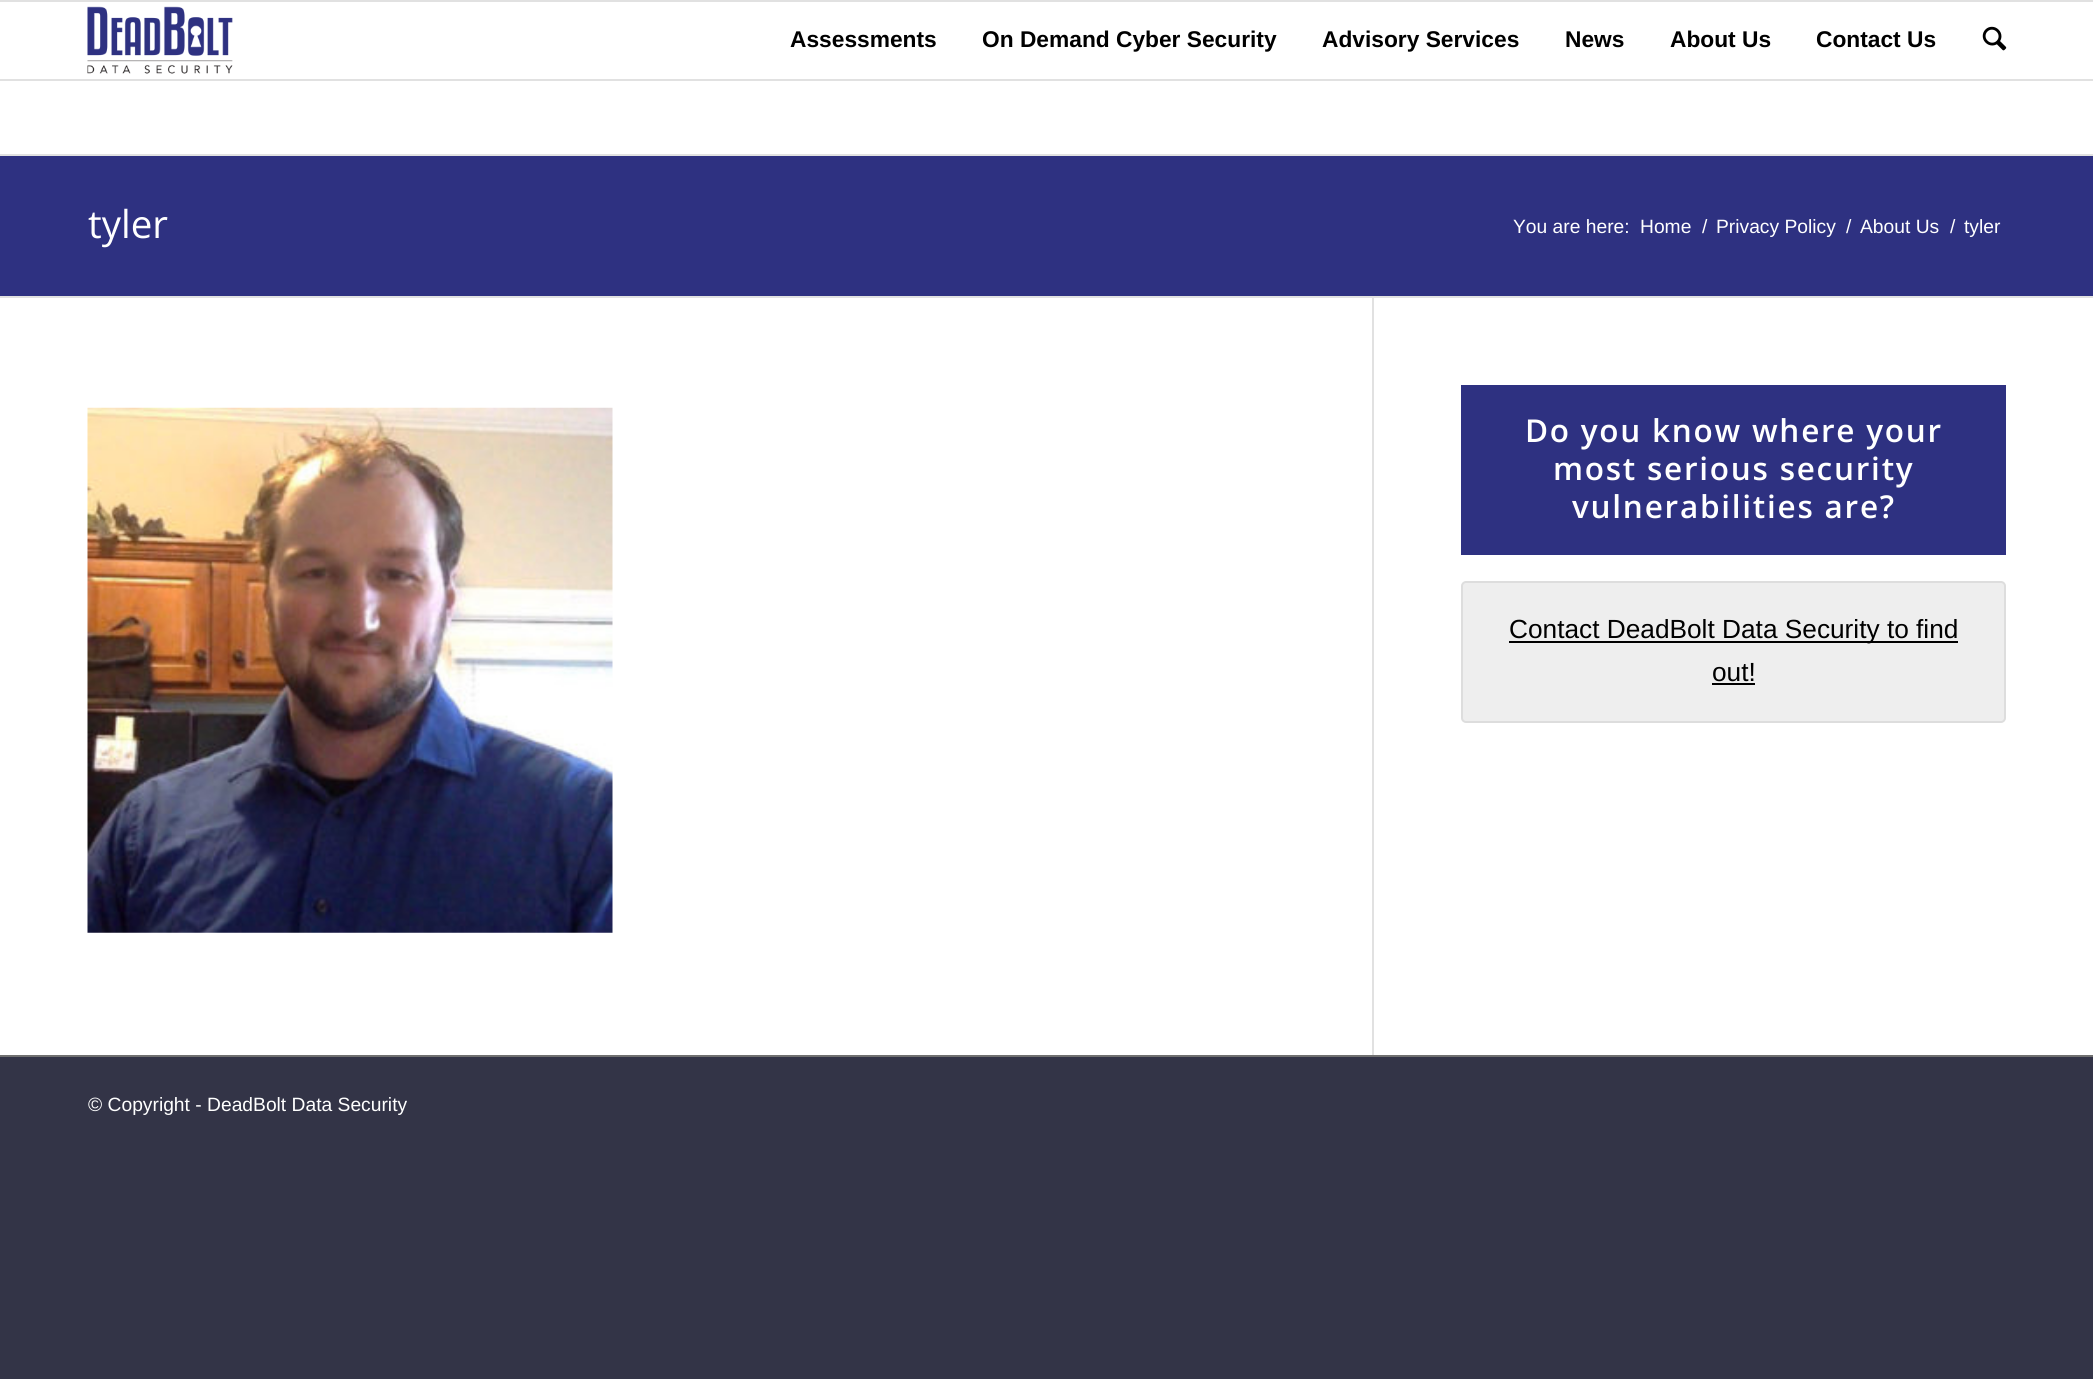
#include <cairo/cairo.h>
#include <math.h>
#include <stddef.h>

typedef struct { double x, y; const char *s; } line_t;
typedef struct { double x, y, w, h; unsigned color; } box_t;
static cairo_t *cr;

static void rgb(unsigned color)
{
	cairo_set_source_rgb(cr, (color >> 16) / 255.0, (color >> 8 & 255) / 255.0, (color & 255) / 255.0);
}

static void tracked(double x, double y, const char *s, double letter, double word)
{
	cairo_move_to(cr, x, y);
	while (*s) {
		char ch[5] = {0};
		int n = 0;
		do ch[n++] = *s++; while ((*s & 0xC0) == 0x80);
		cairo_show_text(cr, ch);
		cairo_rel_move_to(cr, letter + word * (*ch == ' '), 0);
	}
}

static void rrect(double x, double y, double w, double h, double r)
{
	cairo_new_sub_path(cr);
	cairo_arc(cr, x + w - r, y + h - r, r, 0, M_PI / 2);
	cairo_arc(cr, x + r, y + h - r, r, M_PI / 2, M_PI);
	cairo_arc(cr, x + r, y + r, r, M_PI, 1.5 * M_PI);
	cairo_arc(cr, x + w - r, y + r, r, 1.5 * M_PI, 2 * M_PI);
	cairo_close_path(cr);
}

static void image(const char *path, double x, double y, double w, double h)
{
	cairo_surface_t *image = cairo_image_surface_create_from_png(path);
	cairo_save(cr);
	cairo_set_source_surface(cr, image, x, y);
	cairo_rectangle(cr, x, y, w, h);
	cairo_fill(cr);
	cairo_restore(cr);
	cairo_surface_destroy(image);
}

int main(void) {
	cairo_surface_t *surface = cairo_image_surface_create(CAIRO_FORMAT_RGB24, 2093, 1379);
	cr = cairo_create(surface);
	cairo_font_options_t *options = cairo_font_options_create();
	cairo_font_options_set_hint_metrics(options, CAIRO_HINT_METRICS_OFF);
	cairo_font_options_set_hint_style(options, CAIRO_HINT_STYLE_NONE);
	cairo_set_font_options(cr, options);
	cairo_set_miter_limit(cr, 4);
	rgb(0x333447);
	cairo_paint(cr);
	{
		static const box_t items[] = {
			{0, 0, 2093, 2, 0xe1e1e1},
			{0, 2, 2093, 1053, 0xffffff},
			{0, 79, 2093, 2, 0xe1e1e1},
		};
		for (size_t i = 0; i < sizeof items / sizeof *items; i++) {
			rgb(items[i].color);
			cairo_rectangle(cr, items[i].x, items[i].y, items[i].w, items[i].h);
			cairo_fill(cr);
		}
	}
	image("img/1.png", 87, 6, 146, 68);
	image("img/2.png", 1982, 26, 25, 25);
	{
		static const box_t items[] = {
			{0, 156, 2093, 140, 0x2e3181},
			{0, 154, 2093, 2, 0xe1e1e1},
			{0, 296, 2093, 2, 0xe1e1e1},
			{1372, 298, 2, 757, 0xe1e1e1},
		};
		for (size_t i = 0; i < sizeof items / sizeof *items; i++) {
			rgb(items[i].color);
			cairo_rectangle(cr, items[i].x, items[i].y, items[i].w, items[i].h);
			cairo_fill(cr);
		}
	}
	image("img/3.png", 87, 407, 526, 526);
	rgb(0x2e3181);
	cairo_rectangle(cr, 1461, 385, 545, 170);
	cairo_fill(cr);
	rgb(0xeeeeee);
	rrect(1462, 582, 543, 140, 4);
	cairo_fill_preserve(cr);
	rgb(0xdddddd);
	cairo_stroke(cr);
	{
		static const box_t items[] = {
			{1509, 641, 449, 2, 0x000000},
			{1712, 683, 43, 2, 0x000000},
			{0, 1055, 2093, 2, 0x707070},
		};
		for (size_t i = 0; i < sizeof items / sizeof *items; i++) {
			rgb(items[i].color);
			cairo_rectangle(cr, items[i].x, items[i].y, items[i].w, items[i].h);
			cairo_fill(cr);
		}
	}
	cairo_select_font_face(cr, "Liberation Sans", CAIRO_FONT_SLANT_NORMAL, CAIRO_FONT_WEIGHT_BOLD);
	cairo_set_font_size(cr, 22.75);
	rgb(0x000000);
	{
		static const line_t items[] = {
			{790, 47, "Assessments"},
			{982, 47, "On Demand Cyber Security"},
			{1322, 47, "Advisory Services"},
			{1565, 47, "News"},
			{1670, 47, "About Us"},
			{1816, 47, "Contact Us"},
		};
		for (size_t i = 0; i < sizeof items / sizeof *items; i++) {
			cairo_move_to(cr, items[i].x, items[i].y);
			cairo_show_text(cr, items[i].s);
		}
	}
	cairo_select_font_face(cr, "Open Sans", CAIRO_FONT_SLANT_NORMAL, CAIRO_FONT_WEIGHT_NORMAL);
	cairo_set_font_size(cr, 38.5);
	rgb(0xffffff);
	cairo_move_to(cr, 88, 238);
	cairo_show_text(cr, "tyler");
	cairo_select_font_face(cr, "Liberation Sans", CAIRO_FONT_SLANT_NORMAL, CAIRO_FONT_WEIGHT_NORMAL);
	cairo_set_font_size(cr, 19.25);
	{
		static const line_t items[] = {
			{1513, 233, "You are here:"},
			{1640, 233, "Home"},
			{1702, 233, "/"},
			{1716, 233, "Privacy Policy"},
			{1846, 233, "/"},
			{1860, 233, "About Us"},
			{1950, 233, "/"},
			{1964, 233, "tyler"},
		};
		for (size_t i = 0; i < sizeof items / sizeof *items; i++) {
			cairo_move_to(cr, items[i].x, items[i].y);
			cairo_show_text(cr, items[i].s);
		}
	}
	cairo_select_font_face(cr, "Open Sans SemiBold", CAIRO_FONT_SLANT_NORMAL, CAIRO_FONT_WEIGHT_NORMAL);
	cairo_set_font_size(cr, 31.5);
	{
		static const line_t items[] = {
			{1525, 442, "Do you know where your"},
			{1553, 480, "most serious security"},
			{1572, 518, "vulnerabilities are?"},
		};
		for (size_t i = 0; i < sizeof items / sizeof *items; i++) {
			tracked(items[i].x, items[i].y, items[i].s, 1.75, 0);
		}
	}
	cairo_select_font_face(cr, "Liberation Sans", CAIRO_FONT_SLANT_NORMAL, CAIRO_FONT_WEIGHT_NORMAL);
	cairo_set_font_size(cr, 26.25);
	rgb(0x000000);
	cairo_move_to(cr, 1509, 638);
	cairo_show_text(cr, "Contact DeadBolt Data Security to find");
	cairo_move_to(cr, 1712, 681);
	cairo_show_text(cr, "out!");
	cairo_set_font_size(cr, 19.25);
	rgb(0xffffff);
	cairo_move_to(cr, 88, 1111);
	cairo_show_text(cr, "© Copyright - DeadBolt Data Security");
	cairo_surface_write_to_png(surface, "page.png");
	cairo_font_options_destroy(options);
	cairo_destroy(cr);
	cairo_surface_destroy(surface);
	return 0;
}
